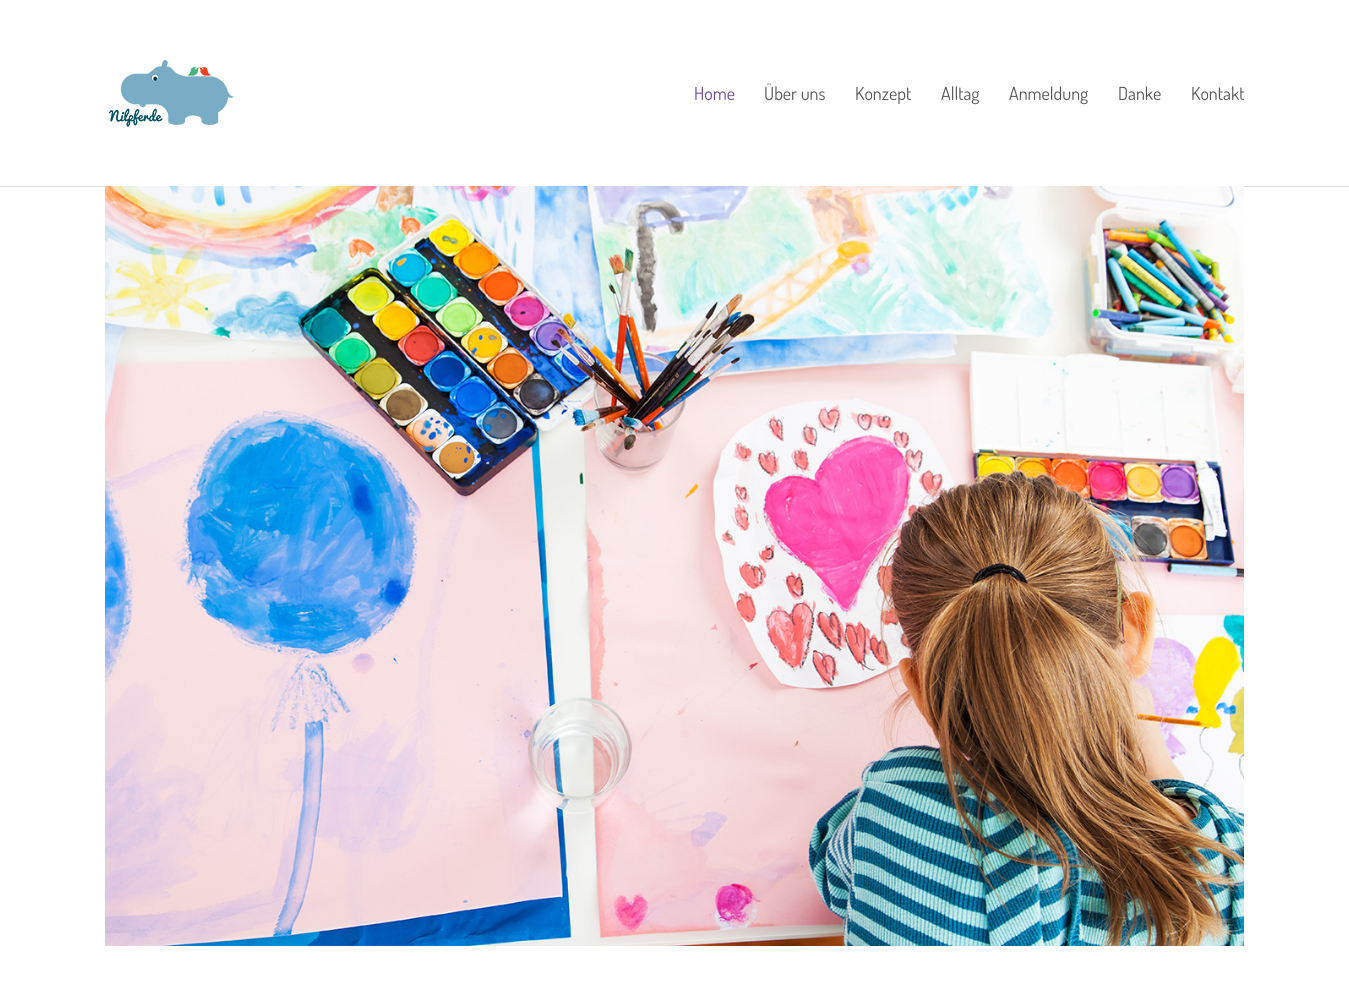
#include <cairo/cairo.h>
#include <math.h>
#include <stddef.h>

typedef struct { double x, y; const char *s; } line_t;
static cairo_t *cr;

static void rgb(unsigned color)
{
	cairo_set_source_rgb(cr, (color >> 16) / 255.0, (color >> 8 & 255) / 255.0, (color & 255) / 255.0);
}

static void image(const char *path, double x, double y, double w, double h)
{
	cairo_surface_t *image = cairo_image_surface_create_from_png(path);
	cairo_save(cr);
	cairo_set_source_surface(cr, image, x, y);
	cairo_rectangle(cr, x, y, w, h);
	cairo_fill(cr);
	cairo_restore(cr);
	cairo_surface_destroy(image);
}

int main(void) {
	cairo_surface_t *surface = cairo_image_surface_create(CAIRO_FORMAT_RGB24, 1349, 998);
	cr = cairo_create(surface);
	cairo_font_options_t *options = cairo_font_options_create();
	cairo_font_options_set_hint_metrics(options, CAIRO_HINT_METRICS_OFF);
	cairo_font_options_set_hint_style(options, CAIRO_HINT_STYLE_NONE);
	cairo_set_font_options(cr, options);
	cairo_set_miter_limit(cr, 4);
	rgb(0xffffff);
	cairo_paint(cr);
	rgb(0xdedede);
	cairo_rectangle(cr, 0, 186, 1349, 1);
	cairo_fill(cr);
	image("img/1.png", 109, 60, 125, 67);
	image("img/2.png", 105, 186, 1139, 760);
	cairo_select_font_face(cr, "Dosis", CAIRO_FONT_SLANT_NORMAL, CAIRO_FONT_WEIGHT_NORMAL);
	cairo_set_font_size(cr, 18);
	rgb(0x6e4692);
	cairo_move_to(cr, 694, 100);
	cairo_show_text(cr, "Home");
	rgb(0x575656);
	{
		static const line_t items[] = {
			{764, 100, "Über uns"},
			{855, 100, "Konzept"},
			{941, 100, "Alltag"},
			{1009, 100, "Anmeldung"},
			{1118, 100, "Danke"},
			{1191, 100, "Kontakt"},
		};
		for (size_t i = 0; i < sizeof items / sizeof *items; i++) {
			cairo_move_to(cr, items[i].x, items[i].y);
			cairo_show_text(cr, items[i].s);
		}
	}
	cairo_surface_write_to_png(surface, "page.png");
	cairo_font_options_destroy(options);
	cairo_destroy(cr);
	cairo_surface_destroy(surface);
	return 0;
}
